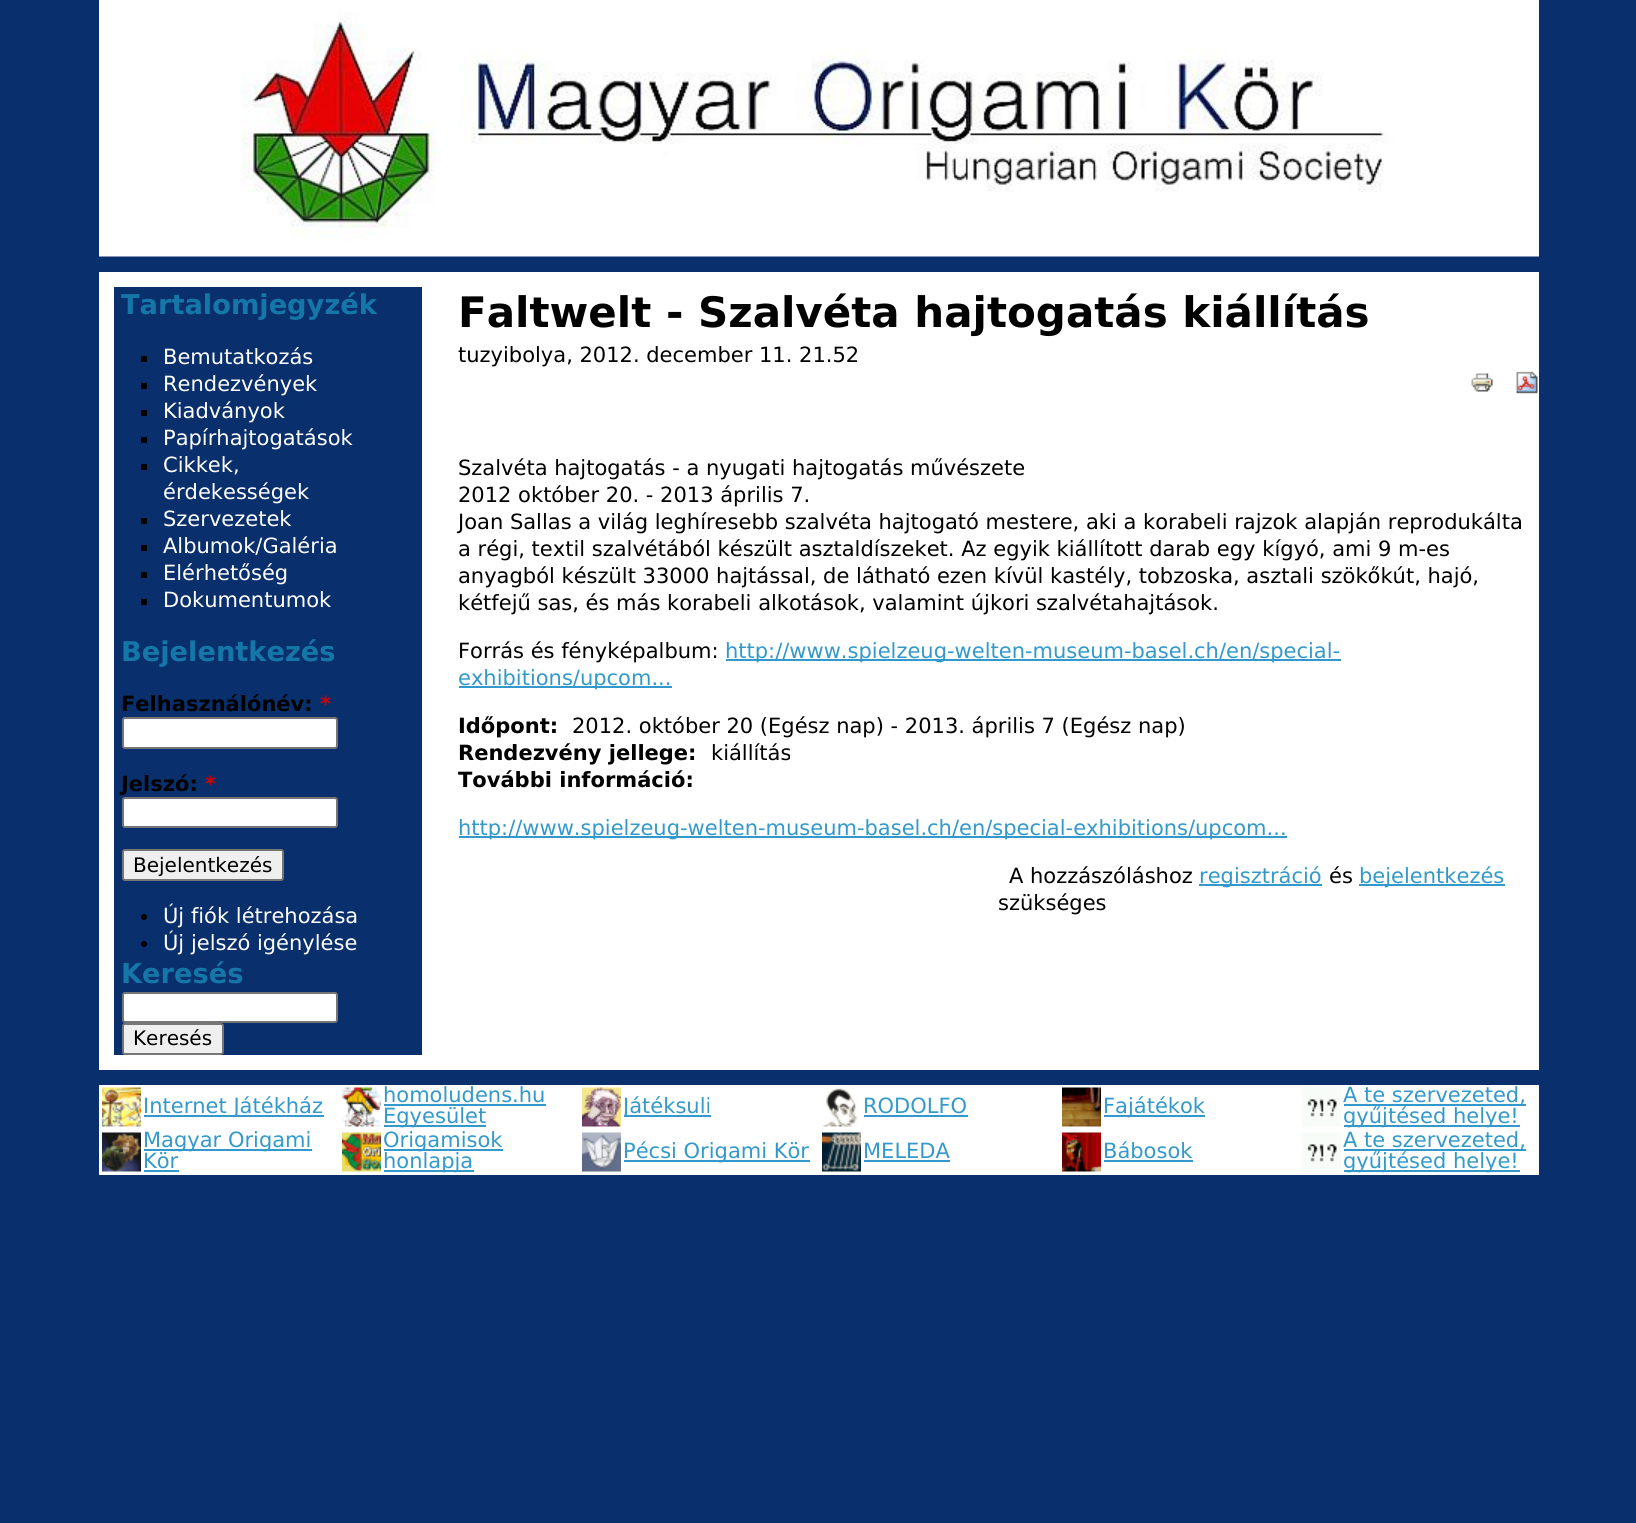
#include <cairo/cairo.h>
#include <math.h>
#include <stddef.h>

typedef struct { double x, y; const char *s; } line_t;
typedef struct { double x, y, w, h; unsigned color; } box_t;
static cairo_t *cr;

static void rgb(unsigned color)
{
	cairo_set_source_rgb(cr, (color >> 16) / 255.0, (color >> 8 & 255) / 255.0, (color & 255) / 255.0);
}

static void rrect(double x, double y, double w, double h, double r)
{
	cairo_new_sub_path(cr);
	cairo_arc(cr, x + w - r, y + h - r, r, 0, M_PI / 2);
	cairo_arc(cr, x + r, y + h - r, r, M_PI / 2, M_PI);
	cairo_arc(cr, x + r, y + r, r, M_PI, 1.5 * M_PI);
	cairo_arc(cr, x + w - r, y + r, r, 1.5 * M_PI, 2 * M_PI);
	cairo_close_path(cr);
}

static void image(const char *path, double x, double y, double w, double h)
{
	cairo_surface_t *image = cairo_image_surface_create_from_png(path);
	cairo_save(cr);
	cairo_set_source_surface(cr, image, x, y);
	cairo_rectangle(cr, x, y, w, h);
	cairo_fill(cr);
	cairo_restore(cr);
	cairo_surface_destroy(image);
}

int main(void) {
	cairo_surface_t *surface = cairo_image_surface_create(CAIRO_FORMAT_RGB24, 1636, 1523);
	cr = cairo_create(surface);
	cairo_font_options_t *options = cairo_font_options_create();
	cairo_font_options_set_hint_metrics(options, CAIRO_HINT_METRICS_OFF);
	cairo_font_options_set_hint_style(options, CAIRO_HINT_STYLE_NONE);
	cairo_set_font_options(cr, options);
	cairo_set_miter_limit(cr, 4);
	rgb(0x092f6d);
	cairo_paint(cr);
	image("img/1.png", 99, 0, 1440, 257);
	{
		static const box_t items[] = {
			{99, 272, 1440, 798, 0xffffff},
			{114, 287, 308, 768, 0x092f6d},
			{141, 356, 6, 6, 0x000000},
			{141, 383, 6, 6, 0x000000},
			{141, 410, 6, 6, 0x000000},
			{141, 437, 6, 6, 0x000000},
			{141, 464, 6, 6, 0x000000},
			{141, 518, 6, 6, 0x000000},
			{141, 545, 6, 6, 0x000000},
			{141, 572, 6, 6, 0x000000},
			{141, 599, 6, 6, 0x000000},
		};
		for (size_t i = 0; i < sizeof items / sizeof *items; i++) {
			rgb(items[i].color);
			cairo_rectangle(cr, items[i].x, items[i].y, items[i].w, items[i].h);
			cairo_fill(cr);
		}
	}
	rgb(0xffffff);
	rrect(123, 718, 214, 30, 2);
	cairo_fill_preserve(cr);
	rgb(0x767676);
	cairo_stroke(cr);
	rgb(0xffffff);
	rrect(123, 798, 214, 29, 2);
	cairo_fill_preserve(cr);
	rgb(0x767676);
	cairo_stroke(cr);
	rgb(0xefefef);
	rrect(123, 850, 160, 30, 2);
	cairo_fill_preserve(cr);
	rgb(0x767676);
	cairo_stroke(cr);
	rgb(0x000000);
	cairo_arc(cr, 144, 917, 3, 0, 2 * M_PI);
	cairo_fill(cr);
	cairo_arc(cr, 144, 944, 3, 0, 2 * M_PI);
	cairo_fill(cr);
	rgb(0xffffff);
	rrect(123, 993, 214, 29, 2);
	cairo_fill_preserve(cr);
	rgb(0x767676);
	cairo_stroke(cr);
	rgb(0xefefef);
	rrect(123, 1024, 100, 30, 2);
	cairo_fill_preserve(cr);
	rgb(0x767676);
	cairo_stroke(cr);
	image("img/2.png", 1471, 373, 22, 19);
	image("img/3.png", 1516, 371, 22, 23);
	{
		static const box_t items[] = {
			{726, 659, 615, 2, 0x3399cc},
			{459, 686, 213, 2, 0x3399cc},
			{459, 836, 828, 2, 0x3399cc},
			{1199, 884, 123, 2, 0x3399cc},
			{1359, 884, 146, 2, 0x3399cc},
			{99, 1085, 1440, 45, 0xffffff},
		};
		for (size_t i = 0; i < sizeof items / sizeof *items; i++) {
			rgb(items[i].color);
			cairo_rectangle(cr, items[i].x, items[i].y, items[i].w, items[i].h);
			cairo_fill(cr);
		}
	}
	image("img/4.png", 102, 1087, 39, 40);
	rgb(0x3399cc);
	cairo_rectangle(cr, 144, 1115, 180, 2);
	cairo_fill(cr);
	image("img/5.png", 342, 1087, 39, 40);
	cairo_rectangle(cr, 384, 1104, 162, 2);
	cairo_fill(cr);
	cairo_rectangle(cr, 384, 1125, 102, 2);
	cairo_fill(cr);
	image("img/6.png", 582, 1087, 39, 40);
	cairo_rectangle(cr, 624, 1115, 87, 2);
	cairo_fill(cr);
	image("img/7.png", 822, 1087, 36, 40);
	cairo_rectangle(cr, 864, 1115, 104, 2);
	cairo_fill(cr);
	image("img/8.png", 1062, 1087, 39, 40);
	cairo_rectangle(cr, 1104, 1115, 101, 2);
	cairo_fill(cr);
	image("img/9.png", 1302, 1087, 39, 40);
	{
		static const box_t items[] = {
			{1344, 1104, 182, 2, 0x3399cc},
			{1344, 1125, 176, 2, 0x3399cc},
			{99, 1130, 1440, 45, 0xffffff},
		};
		for (size_t i = 0; i < sizeof items / sizeof *items; i++) {
			rgb(items[i].color);
			cairo_rectangle(cr, items[i].x, items[i].y, items[i].w, items[i].h);
			cairo_fill(cr);
		}
	}
	image("img/10.png", 102, 1132, 39, 40);
	rgb(0x3399cc);
	cairo_rectangle(cr, 144, 1149, 168, 2);
	cairo_fill(cr);
	cairo_rectangle(cr, 144, 1170, 35, 2);
	cairo_fill(cr);
	image("img/11.png", 342, 1132, 39, 40);
	cairo_rectangle(cr, 384, 1149, 119, 2);
	cairo_fill(cr);
	cairo_rectangle(cr, 384, 1170, 90, 2);
	cairo_fill(cr);
	image("img/12.png", 582, 1132, 39, 40);
	cairo_rectangle(cr, 624, 1160, 186, 2);
	cairo_fill(cr);
	image("img/13.png", 822, 1132, 39, 40);
	cairo_rectangle(cr, 864, 1160, 86, 2);
	cairo_fill(cr);
	image("img/14.png", 1062, 1132, 39, 40);
	cairo_rectangle(cr, 1104, 1160, 89, 2);
	cairo_fill(cr);
	image("img/9.png", 1302, 1132, 39, 40);
	cairo_rectangle(cr, 1344, 1149, 182, 2);
	cairo_fill(cr);
	cairo_rectangle(cr, 1344, 1170, 176, 2);
	cairo_fill(cr);
	cairo_select_font_face(cr, "DejaVu Sans", CAIRO_FONT_SLANT_NORMAL, CAIRO_FONT_WEIGHT_BOLD);
	cairo_set_font_size(cr, 27.25);
	rgb(0x1577a8);
	cairo_move_to(cr, 121, 314);
	cairo_show_text(cr, "Tartalomjegyzék");
	cairo_select_font_face(cr, "DejaVu Sans", CAIRO_FONT_SLANT_NORMAL, CAIRO_FONT_WEIGHT_NORMAL);
	cairo_set_font_size(cr, 21);
	rgb(0xffffff);
	{
		static const line_t items[] = {
			{163, 364, "Bemutatkozás"},
			{163, 391, "Rendezvények"},
			{163, 418, "Kiadványok"},
			{163, 445, "Papírhajtogatások"},
			{163, 472, "Cikkek,"},
			{163, 499, "érdekességek"},
			{163, 526, "Szervezetek"},
			{163, 553, "Albumok/Galéria"},
			{163, 580, "Elérhetőség"},
			{163, 607, "Dokumentumok"},
		};
		for (size_t i = 0; i < sizeof items / sizeof *items; i++) {
			cairo_move_to(cr, items[i].x, items[i].y);
			cairo_show_text(cr, items[i].s);
		}
	}
	cairo_select_font_face(cr, "DejaVu Sans", CAIRO_FONT_SLANT_NORMAL, CAIRO_FONT_WEIGHT_BOLD);
	cairo_set_font_size(cr, 27.25);
	rgb(0x1577a8);
	cairo_move_to(cr, 121, 661);
	cairo_show_text(cr, "Bejelentkezés");
	cairo_set_font_size(cr, 21);
	rgb(0x000000);
	cairo_move_to(cr, 121, 711);
	cairo_show_text(cr, "Felhasználónév:");
	rgb(0xcc0000);
	cairo_move_to(cr, 320, 711);
	cairo_show_text(cr, "*");
	rgb(0x000000);
	cairo_move_to(cr, 121, 791);
	cairo_show_text(cr, "Jelszó:");
	rgb(0xcc0000);
	cairo_move_to(cr, 205, 791);
	cairo_show_text(cr, "*");
	cairo_select_font_face(cr, "DejaVu Sans", CAIRO_FONT_SLANT_NORMAL, CAIRO_FONT_WEIGHT_NORMAL);
	cairo_set_font_size(cr, 20);
	rgb(0x000000);
	cairo_move_to(cr, 133, 872);
	cairo_show_text(cr, "Bejelentkezés");
	cairo_set_font_size(cr, 21);
	rgb(0xffffff);
	cairo_move_to(cr, 163, 923);
	cairo_show_text(cr, "Új fiók létrehozása");
	cairo_move_to(cr, 163, 950);
	cairo_show_text(cr, "Új jelszó igénylése");
	cairo_select_font_face(cr, "DejaVu Sans", CAIRO_FONT_SLANT_NORMAL, CAIRO_FONT_WEIGHT_BOLD);
	cairo_set_font_size(cr, 27.25);
	rgb(0x1577a8);
	cairo_move_to(cr, 121, 983);
	cairo_show_text(cr, "Keresés");
	cairo_select_font_face(cr, "DejaVu Sans", CAIRO_FONT_SLANT_NORMAL, CAIRO_FONT_WEIGHT_NORMAL);
	cairo_set_font_size(cr, 20);
	rgb(0x000000);
	cairo_move_to(cr, 133, 1045);
	cairo_show_text(cr, "Keresés");
	cairo_select_font_face(cr, "DejaVu Sans", CAIRO_FONT_SLANT_NORMAL, CAIRO_FONT_WEIGHT_BOLD);
	cairo_set_font_size(cr, 42);
	cairo_move_to(cr, 458, 327);
	cairo_show_text(cr, "Faltwelt - Szalvéta hajtogatás kiállítás");
	cairo_select_font_face(cr, "DejaVu Sans", CAIRO_FONT_SLANT_NORMAL, CAIRO_FONT_WEIGHT_NORMAL);
	cairo_set_font_size(cr, 21);
	{
		static const line_t items[] = {
			{458, 362, "tuzyibolya, 2012. december 11. 21.52"},
			{458, 475, "Szalvéta hajtogatás - a nyugati hajtogatás művészete"},
			{458, 502, "2012 október 20. - 2013 április 7."},
			{458, 529, "Joan Sallas a világ leghíresebb szalvéta hajtogató mestere, aki a korabeli rajzok alapján reprodukálta"},
			{458, 556, "a régi, textil szalvétából készült asztaldíszeket. Az egyik kiállított darab egy kígyó, ami 9 m-es"},
			{458, 583, "anyagból készült 33000 hajtással, de látható ezen kívül kastély, tobzoska, asztali szökőkút, hajó,"},
			{458, 610, "kétfejű sas, és más korabeli alkotások, valamint újkori szalvétahajtások."},
			{458, 658, "Forrás és fényképalbum:"},
		};
		for (size_t i = 0; i < sizeof items / sizeof *items; i++) {
			cairo_move_to(cr, items[i].x, items[i].y);
			cairo_show_text(cr, items[i].s);
		}
	}
	rgb(0x3399cc);
	cairo_move_to(cr, 725, 658);
	cairo_show_text(cr, "http://www.spielzeug-welten-museum-basel.ch/en/special-");
	cairo_move_to(cr, 458, 685);
	cairo_show_text(cr, "exhibitions/upcom...");
	cairo_select_font_face(cr, "DejaVu Sans", CAIRO_FONT_SLANT_NORMAL, CAIRO_FONT_WEIGHT_BOLD);
	rgb(0x000000);
	cairo_move_to(cr, 458, 733);
	cairo_show_text(cr, "Időpont:");
	cairo_select_font_face(cr, "DejaVu Sans", CAIRO_FONT_SLANT_NORMAL, CAIRO_FONT_WEIGHT_NORMAL);
	cairo_move_to(cr, 572, 733);
	cairo_show_text(cr, "2012. október 20 (Egész nap) - 2013. április 7 (Egész nap)");
	cairo_select_font_face(cr, "DejaVu Sans", CAIRO_FONT_SLANT_NORMAL, CAIRO_FONT_WEIGHT_BOLD);
	cairo_move_to(cr, 458, 760);
	cairo_show_text(cr, "Rendezvény jellege:");
	cairo_select_font_face(cr, "DejaVu Sans", CAIRO_FONT_SLANT_NORMAL, CAIRO_FONT_WEIGHT_NORMAL);
	cairo_move_to(cr, 711, 760);
	cairo_show_text(cr, "kiállítás");
	cairo_select_font_face(cr, "DejaVu Sans", CAIRO_FONT_SLANT_NORMAL, CAIRO_FONT_WEIGHT_BOLD);
	cairo_move_to(cr, 458, 787);
	cairo_show_text(cr, "További információ:");
	cairo_select_font_face(cr, "DejaVu Sans", CAIRO_FONT_SLANT_NORMAL, CAIRO_FONT_WEIGHT_NORMAL);
	rgb(0x3399cc);
	cairo_move_to(cr, 458, 835);
	cairo_show_text(cr, "http://www.spielzeug-welten-museum-basel.ch/en/special-exhibitions/upcom...");
	rgb(0x000000);
	cairo_move_to(cr, 1009, 883);
	cairo_show_text(cr, "A hozzászóláshoz");
	rgb(0x3399cc);
	cairo_move_to(cr, 1199, 883);
	cairo_show_text(cr, "regisztráció");
	rgb(0x000000);
	cairo_move_to(cr, 1329, 883);
	cairo_show_text(cr, "és");
	rgb(0x3399cc);
	cairo_move_to(cr, 1359, 883);
	cairo_show_text(cr, "bejelentkezés");
	rgb(0x000000);
	cairo_move_to(cr, 998, 910);
	cairo_show_text(cr, "szükséges");
	rgb(0x3399cc);
	{
		static const line_t items[] = {
			{143, 1113, "Internet Játékház"},
			{383, 1102, "homoludens.hu"},
			{383, 1123, "Egyesület"},
		};
		for (size_t i = 0; i < sizeof items / sizeof *items; i++) {
			cairo_move_to(cr, items[i].x, items[i].y);
			cairo_show_text(cr, items[i].s);
		}
	}
	cairo_save(cr);
	cairo_rectangle(cr, 624, 1095, 87, 24);
	cairo_clip(cr);
	cairo_move_to(cr, 623, 1113);
	cairo_show_text(cr, "Játéksuli");
	cairo_restore(cr);
	{
		static const line_t items[] = {
			{863, 1113, "RODOLFO"},
			{1103, 1113, "Fajátékok"},
			{1343, 1102, "A te szervezeted,"},
			{1343, 1123, "gyűjtésed helye!"},
			{143, 1147, "Magyar Origami"},
			{143, 1168, "Kör"},
			{383, 1147, "Origamisok"},
			{383, 1168, "honlapja"},
			{623, 1158, "Pécsi Origami Kör"},
			{863, 1158, "MELEDA"},
			{1103, 1158, "Bábosok"},
			{1343, 1147, "A te szervezeted,"},
			{1343, 1168, "gyűjtésed helye!"},
		};
		for (size_t i = 0; i < sizeof items / sizeof *items; i++) {
			cairo_move_to(cr, items[i].x, items[i].y);
			cairo_show_text(cr, items[i].s);
		}
	}
	cairo_surface_write_to_png(surface, "page.png");
	cairo_font_options_destroy(options);
	cairo_destroy(cr);
	cairo_surface_destroy(surface);
	return 0;
}
